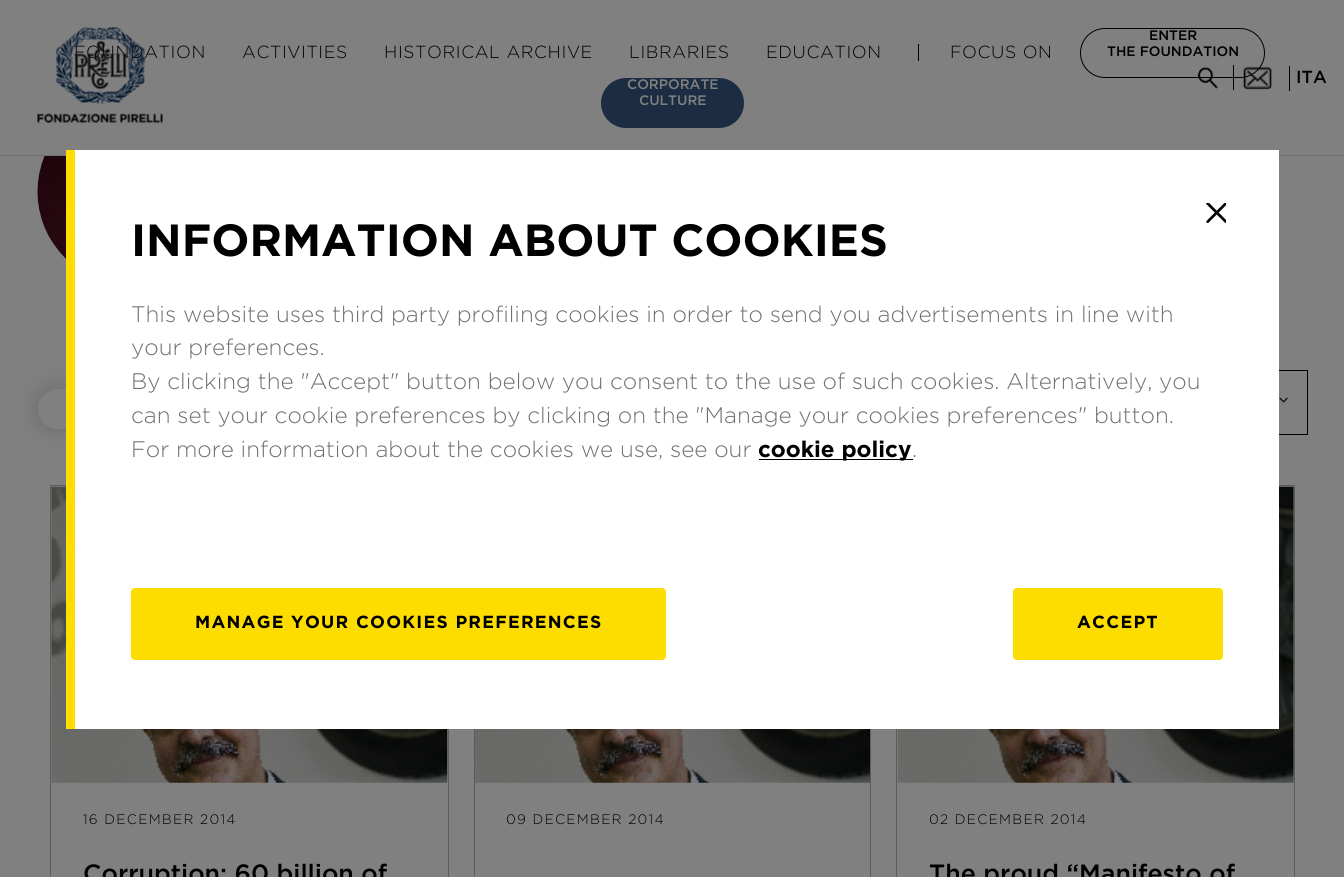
#include <cairo/cairo.h>
#include <math.h>
#include <stddef.h>

typedef struct { double x, y; const char *s; } line_t;
static cairo_t *cr;

static void rgb(unsigned color)
{
	cairo_set_source_rgb(cr, (color >> 16) / 255.0, (color >> 8 & 255) / 255.0, (color & 255) / 255.0);
}

static void tracked(double x, double y, const char *s, double letter, double word)
{
	cairo_move_to(cr, x, y);
	while (*s) {
		char ch[5] = {0};
		int n = 0;
		do ch[n++] = *s++; while ((*s & 0xC0) == 0x80);
		cairo_show_text(cr, ch);
		cairo_rel_move_to(cr, letter + word * (*ch == ' '), 0);
	}
}

static void rrect(double x, double y, double w, double h, double r)
{
	cairo_new_sub_path(cr);
	cairo_arc(cr, x + w - r, y + h - r, r, 0, M_PI / 2);
	cairo_arc(cr, x + r, y + h - r, r, M_PI / 2, M_PI);
	cairo_arc(cr, x + r, y + r, r, M_PI, 1.5 * M_PI);
	cairo_arc(cr, x + w - r, y + r, r, 1.5 * M_PI, 2 * M_PI);
	cairo_close_path(cr);
}

static void soft_shadow(double x, double y, double w, double h, double r, double blur, double alpha)
{
	cairo_push_group_with_content(cr, CAIRO_CONTENT_ALPHA);
	cairo_set_operator(cr, CAIRO_OPERATOR_SOURCE);
	for (int i = 15; i >= -15 && fmin(w, h) + blur * i / 3 > 0; i -= 2) {
		double e = blur * i / 6;
		cairo_set_source_rgba(cr, 0, 0, 0, alpha * erfc((i - 1) / 8.5) / 2);
		rrect(x - e, y - e, w + 2 * e, h + 2 * e, fmax(0, fmin(r + e + blur * .6, fmin(w, h) / 2 + e)));
		cairo_fill(cr);
	}
	cairo_pattern_t *soft = cairo_pop_group(cr);
	cairo_mask(cr, soft);
	cairo_pattern_destroy(soft);
}

static void image(const char *path, double x, double y, double w, double h)
{
	cairo_surface_t *image = cairo_image_surface_create_from_png(path);
	cairo_save(cr);
	cairo_set_source_surface(cr, image, x, y);
	cairo_rectangle(cr, x, y, w, h);
	cairo_fill(cr);
	cairo_restore(cr);
	cairo_surface_destroy(image);
}

int main(void) {
	cairo_surface_t *surface = cairo_image_surface_create(CAIRO_FORMAT_RGB24, 1344, 877);
	cr = cairo_create(surface);
	cairo_font_options_t *options = cairo_font_options_create();
	cairo_font_options_set_hint_metrics(options, CAIRO_HINT_METRICS_OFF);
	cairo_font_options_set_hint_style(options, CAIRO_HINT_STYLE_NONE);
	cairo_set_font_options(cr, options);
	cairo_set_miter_limit(cr, 4);
	rgb(0x808080);
	cairo_paint(cr);
	rgb(0x717171);
	cairo_rectangle(cr, 0, 155, 1344, 1);
	cairo_fill(cr);
	rrect(1080.5, 28.5, 184, 49, 24.5);
	rgb(0x000000);
	cairo_set_line_width(cr, 1);
	cairo_stroke(cr);
	rgb(0x1b2c43);
	rrect(601, 78, 143, 50, 25);
	cairo_fill(cr);
	rgb(0x000000);
	cairo_rectangle(cr, 918, 44, 1, 17);
	cairo_fill(cr);
	cairo_rectangle(cr, 1233, 65, 1, 25);
	cairo_fill(cr);
	image("img/2.png", 1243, 66, 29, 24);
	image("img/3.png", 1198, 67, 20, 22);
	cairo_rectangle(cr, 1289, 66, 1, 25);
	cairo_fill(cr);
	rgb(0x747474);
	soft_shadow(30, 381, 110, 55, 27.5, 6, 0.9);
	rgb(0x808080);
	rrect(38, 389, 95, 40, 20);
	cairo_fill(cr);
	cairo_rectangle(cr, 1058.5, 370.5, 249, 64);
	rgb(0x000000);
	cairo_stroke(cr);
	cairo_rectangle(cr, 50.5, 485.5, 398, 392);
	rgb(0x5c5c5c);
	cairo_stroke(cr);
	image("img/7.png", 51, 486, 397, 297);
	cairo_rectangle(cr, 474.5, 485.5, 396, 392);
	cairo_stroke(cr);
	cairo_rectangle(cr, 896.5, 485.5, 398, 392);
	cairo_stroke(cr);
	image("img/9.png", 897, 486, 397, 297);
	rgb(0xffffff);
	cairo_rectangle(cr, 75, 150, 1204, 579);
	cairo_fill(cr);
	rgb(0xffdd00);
	cairo_rectangle(cr, 66, 150, 9, 579);
	cairo_fill(cr);
	image("img/4.png", 1206, 203, 20, 20);
	rgb(0x000000);
	cairo_rectangle(cr, 759, 459, 154, 1);
	cairo_fill(cr);
	rgb(0xfddd00);
	rrect(131.5, 588.5, 534, 71, 3.5);
	cairo_fill_preserve(cr);
	cairo_stroke(cr);
	rrect(1013.5, 588.5, 209, 71, 3.5);
	cairo_fill_preserve(cr);
	cairo_stroke(cr);
	image("img/5.png", 37, 156, 29, 103);
	image("img/6.png", 1279, 397, 9, 6);
	image("img/8.png", 475, 729, 395, 54);
	cairo_select_font_face(cr, "Gotham Light", CAIRO_FONT_SLANT_NORMAL, CAIRO_FONT_WEIGHT_NORMAL);
	cairo_set_font_size(cr, 17.5);
	rgb(0x000000);
	tracked(74, 58, "FOUNDATION", 0.6, 0);
	image("img/1.png", 37, 27, 126, 96);
	tracked(242, 58, "ACTIVITIES", 0.6, 0);
	tracked(384, 58, "HISTORICAL ARCHIVE", 0.6, 0);
	cairo_select_font_face(cr, "Gotham Medium", CAIRO_FONT_SLANT_NORMAL, CAIRO_FONT_WEIGHT_NORMAL);
	cairo_set_font_size(cr, 13.75);
	cairo_move_to(cr, 1149, 40);
	cairo_show_text(cr, "ENTER");
	cairo_move_to(cr, 1107, 56);
	cairo_show_text(cr, "THE FOUNDATION");
	rgb(0x808080);
	cairo_move_to(cr, 627, 89);
	cairo_show_text(cr, "CORPORATE");
	cairo_move_to(cr, 639, 105);
	cairo_show_text(cr, "CULTURE");
	cairo_select_font_face(cr, "Gotham Light", CAIRO_FONT_SLANT_NORMAL, CAIRO_FONT_WEIGHT_NORMAL);
	cairo_set_font_size(cr, 17.5);
	rgb(0x000000);
	{
		static const line_t items[] = {
			{629, 58, "LIBRARIES"},
			{766, 58, "EDUCATION"},
			{950, 58, "FOCUS ON"},
		};
		for (size_t i = 0; i < sizeof items / sizeof *items; i++) {
			tracked(items[i].x, items[i].y, items[i].s, 0.6, 0);
		}
	}
	cairo_select_font_face(cr, "Gotham Medium", CAIRO_FONT_SLANT_NORMAL, CAIRO_FONT_WEIGHT_NORMAL);
	cairo_move_to(cr, 1296, 83);
	cairo_show_text(cr, "ITA");
	cairo_select_font_face(cr, "Gotham", CAIRO_FONT_SLANT_NORMAL, CAIRO_FONT_WEIGHT_BOLD);
	cairo_set_font_size(cr, 45);
	cairo_move_to(cr, 131, 256);
	cairo_show_text(cr, "INFORMATION ABOUT COOKIES");
	cairo_select_font_face(cr, "Gotham Light", CAIRO_FONT_SLANT_NORMAL, CAIRO_FONT_WEIGHT_NORMAL);
	cairo_set_font_size(cr, 22.5);
	rgb(0x707070);
	{
		static const line_t items[] = {
			{131, 322, "This website uses third party profiling cookies in order to send you advertisements in line with"},
			{131, 355, "your preferences."},
			{131, 389, "By clicking the \"Accept\" button below you consent to the use of such cookies. Alternatively, you"},
			{131, 423, "can set your cookie preferences by clicking on the \"Manage your cookies preferences\" button."},
			{131, 457, "For more information about the cookies we use, see our"},
		};
		for (size_t i = 0; i < sizeof items / sizeof *items; i++) {
			cairo_move_to(cr, items[i].x, items[i].y);
			cairo_show_text(cr, items[i].s);
		}
	}
	cairo_select_font_face(cr, "Gotham", CAIRO_FONT_SLANT_NORMAL, CAIRO_FONT_WEIGHT_BOLD);
	rgb(0x000000);
	cairo_move_to(cr, 758, 457);
	cairo_show_text(cr, "cookie policy");
	cairo_select_font_face(cr, "Gotham Light", CAIRO_FONT_SLANT_NORMAL, CAIRO_FONT_WEIGHT_NORMAL);
	rgb(0x707070);
	cairo_move_to(cr, 912, 457);
	cairo_show_text(cr, ".");
	cairo_select_font_face(cr, "Gotham", CAIRO_FONT_SLANT_NORMAL, CAIRO_FONT_WEIGHT_BOLD);
	cairo_set_font_size(cr, 17.5);
	rgb(0x000000);
	tracked(195, 628, "MANAGE YOUR COOKIES PREFERENCES", 1.25, 0);
	tracked(1077, 628, "ACCEPT", 1.25, 0);
	cairo_select_font_face(cr, "Gotham Light", CAIRO_FONT_SLANT_NORMAL, CAIRO_FONT_WEIGHT_NORMAL);
	cairo_set_font_size(cr, 13.75);
	tracked(83, 824, "16 DECEMBER 2014", 1.25, 0);
	cairo_select_font_face(cr, "Gotham Medium", CAIRO_FONT_SLANT_NORMAL, CAIRO_FONT_WEIGHT_NORMAL);
	cairo_set_font_size(cr, 25);
	cairo_move_to(cr, 83, 882);
	cairo_show_text(cr, "Corruption: 60 billion of");
	cairo_select_font_face(cr, "Gotham Light", CAIRO_FONT_SLANT_NORMAL, CAIRO_FONT_WEIGHT_NORMAL);
	cairo_set_font_size(cr, 13.75);
	tracked(506, 824, "09 DECEMBER 2014", 1.25, 0);
	tracked(929, 824, "02 DECEMBER 2014", 1.25, 0);
	cairo_select_font_face(cr, "Gotham Medium", CAIRO_FONT_SLANT_NORMAL, CAIRO_FONT_WEIGHT_NORMAL);
	cairo_set_font_size(cr, 25);
	cairo_move_to(cr, 929, 882);
	cairo_show_text(cr, "The proud “Manifesto of");
	cairo_surface_write_to_png(surface, "page.png");
	cairo_font_options_destroy(options);
	cairo_destroy(cr);
	cairo_surface_destroy(surface);
	return 0;
}
